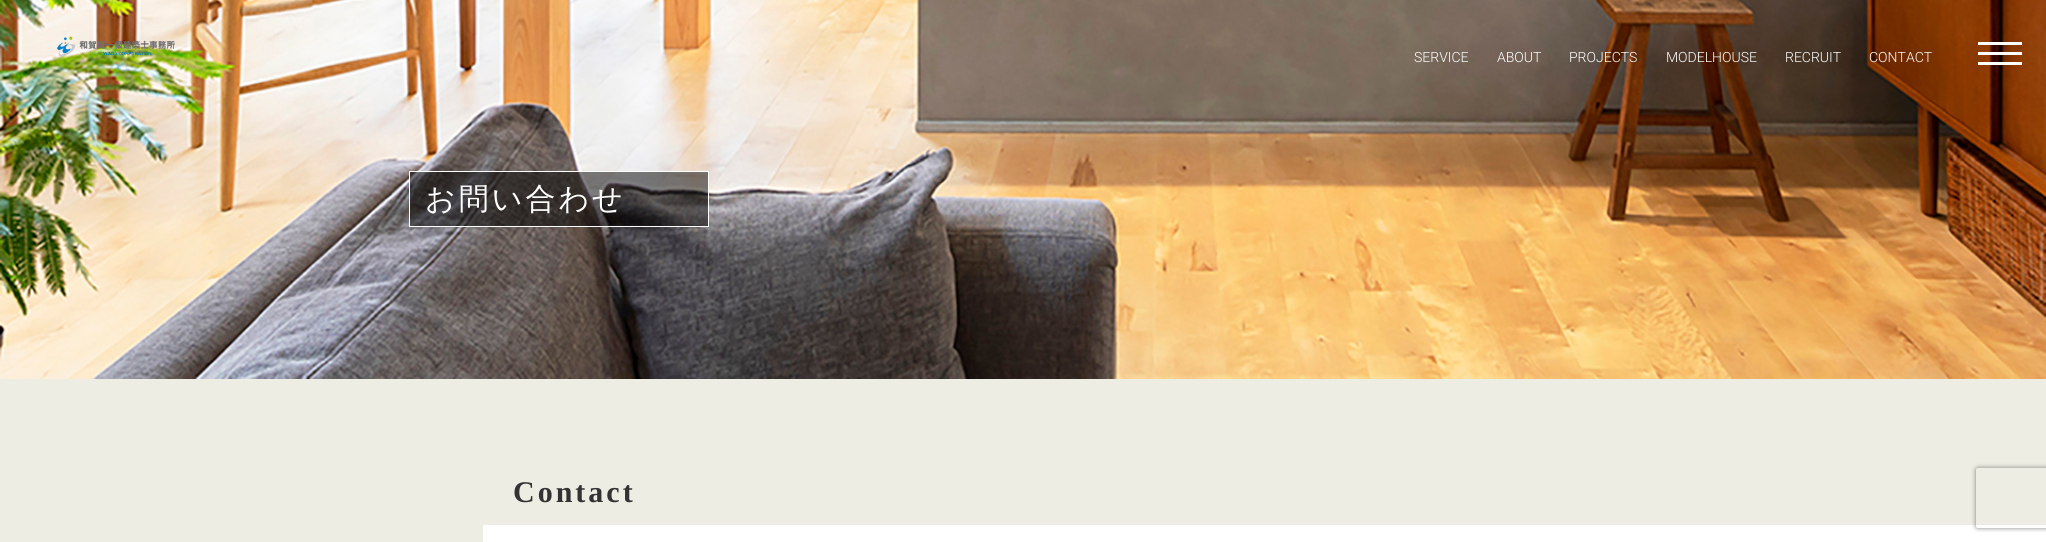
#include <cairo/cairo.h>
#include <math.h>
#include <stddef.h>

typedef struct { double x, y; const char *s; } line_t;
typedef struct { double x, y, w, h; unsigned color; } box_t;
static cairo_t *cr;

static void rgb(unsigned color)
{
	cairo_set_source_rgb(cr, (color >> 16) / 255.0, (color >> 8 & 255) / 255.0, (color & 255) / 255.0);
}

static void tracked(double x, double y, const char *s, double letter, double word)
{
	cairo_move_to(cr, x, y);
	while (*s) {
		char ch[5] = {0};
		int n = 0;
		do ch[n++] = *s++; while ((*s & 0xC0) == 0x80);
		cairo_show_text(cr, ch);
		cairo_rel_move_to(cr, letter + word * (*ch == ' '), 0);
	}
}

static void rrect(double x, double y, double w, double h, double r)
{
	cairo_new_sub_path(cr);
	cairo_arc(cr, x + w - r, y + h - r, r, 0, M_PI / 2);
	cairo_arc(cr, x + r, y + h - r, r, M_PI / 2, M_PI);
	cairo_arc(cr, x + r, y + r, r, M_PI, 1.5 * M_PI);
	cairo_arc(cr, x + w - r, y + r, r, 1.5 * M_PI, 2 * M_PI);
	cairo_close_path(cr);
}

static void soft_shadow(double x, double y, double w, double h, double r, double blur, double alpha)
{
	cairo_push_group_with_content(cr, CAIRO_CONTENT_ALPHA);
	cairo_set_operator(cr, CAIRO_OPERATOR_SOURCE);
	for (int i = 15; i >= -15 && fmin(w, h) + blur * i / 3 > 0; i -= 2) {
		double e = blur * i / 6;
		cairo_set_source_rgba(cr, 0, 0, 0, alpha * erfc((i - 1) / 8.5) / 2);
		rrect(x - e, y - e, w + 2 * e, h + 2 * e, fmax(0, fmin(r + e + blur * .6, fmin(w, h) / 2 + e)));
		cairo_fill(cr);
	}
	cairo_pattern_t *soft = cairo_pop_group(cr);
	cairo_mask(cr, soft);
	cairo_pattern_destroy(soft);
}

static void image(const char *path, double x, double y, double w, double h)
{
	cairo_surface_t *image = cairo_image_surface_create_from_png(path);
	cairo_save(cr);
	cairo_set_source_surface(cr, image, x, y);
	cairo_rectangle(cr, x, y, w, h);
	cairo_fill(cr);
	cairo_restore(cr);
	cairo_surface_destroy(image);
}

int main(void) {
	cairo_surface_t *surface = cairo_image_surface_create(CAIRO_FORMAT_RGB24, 2046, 542);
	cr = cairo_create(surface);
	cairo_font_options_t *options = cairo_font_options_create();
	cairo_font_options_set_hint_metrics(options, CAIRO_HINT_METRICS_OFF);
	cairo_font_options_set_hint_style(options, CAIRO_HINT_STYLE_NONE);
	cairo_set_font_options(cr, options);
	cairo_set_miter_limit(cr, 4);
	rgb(0xeeede3);
	cairo_paint(cr);
	image("img/1.png", 0, 0, 2046, 379);
	{
		static const box_t items[] = {
			{1978, 42, 44, 3, 0xffffff},
			{1978, 52, 44, 3, 0xffffff},
			{1978, 62, 44, 3, 0xffffff},
		};
		for (size_t i = 0; i < sizeof items / sizeof *items; i++) {
			rgb(items[i].color);
			cairo_rectangle(cr, items[i].x, items[i].y, items[i].w, items[i].h);
			cairo_fill(cr);
		}
	}
	image("img/2.png", 57, 36, 118, 21);
	cairo_set_source_rgba(cr, 0, 0, 0, 0.5);
	cairo_rectangle(cr, 409.5, 171.5, 299, 55);
	cairo_fill_preserve(cr);
	rgb(0xffffff);
	cairo_set_line_width(cr, 1);
	cairo_stroke(cr);
	cairo_rectangle(cr, 483, 525, 1563, 17);
	cairo_fill(cr);
	cairo_save(cr);
	cairo_set_fill_rule(cr, CAIRO_FILL_RULE_EVEN_ODD);
	cairo_new_path(cr);
	cairo_move_to(cr, 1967, 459);
	cairo_line_to(cr, 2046, 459);
	cairo_line_to(cr, 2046, 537);
	cairo_line_to(cr, 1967, 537);
	cairo_close_path(cr);
	cairo_move_to(cr, 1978, 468);
	cairo_line_to(cr, 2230, 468);
	cairo_curve_to(cr, 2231, 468, 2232, 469, 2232, 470);
	cairo_line_to(cr, 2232, 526);
	cairo_curve_to(cr, 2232, 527, 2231, 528, 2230, 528);
	cairo_line_to(cr, 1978, 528);
	cairo_curve_to(cr, 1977, 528, 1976, 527, 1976, 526);
	cairo_line_to(cr, 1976, 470);
	cairo_curve_to(cr, 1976, 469, 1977, 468, 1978, 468);
	cairo_close_path(cr);
	cairo_clip(cr);
	rgb(0x808080);
	soft_shadow(1976, 468, 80, 60, 2, 2.5, 1);
	cairo_restore(cr);
	cairo_select_font_face(cr, "Roboto Light", CAIRO_FONT_SLANT_NORMAL, CAIRO_FONT_WEIGHT_NORMAL);
	cairo_set_font_size(cr, 14);
	{
		static const line_t items[] = {
			{1414, 62, "SERVICE"},
			{1497, 62, "ABOUT"},
			{1569, 62, "PROJECTS"},
			{1666, 62, "MODELHOUSE"},
			{1785, 62, "RECRUIT"},
			{1869, 62, "CONTACT"},
		};
		for (size_t i = 0; i < sizeof items / sizeof *items; i++) {
			cairo_move_to(cr, items[i].x, items[i].y);
			cairo_show_text(cr, items[i].s);
		}
	}
	cairo_select_font_face(cr, "WenQuanYi Zen Hei Medium", CAIRO_FONT_SLANT_NORMAL, CAIRO_FONT_WEIGHT_NORMAL);
	cairo_set_font_size(cr, 30);
	tracked(425, 209, "お問い合わせ", 3, 0);
	cairo_select_font_face(cr, "Liberation Serif", CAIRO_FONT_SLANT_NORMAL, CAIRO_FONT_WEIGHT_BOLD);
	rgb(0x333333);
	tracked(513, 502, "Contact", 3, 0);
	cairo_surface_write_to_png(surface, "page.png");
	cairo_font_options_destroy(options);
	cairo_destroy(cr);
	cairo_surface_destroy(surface);
	return 0;
}
